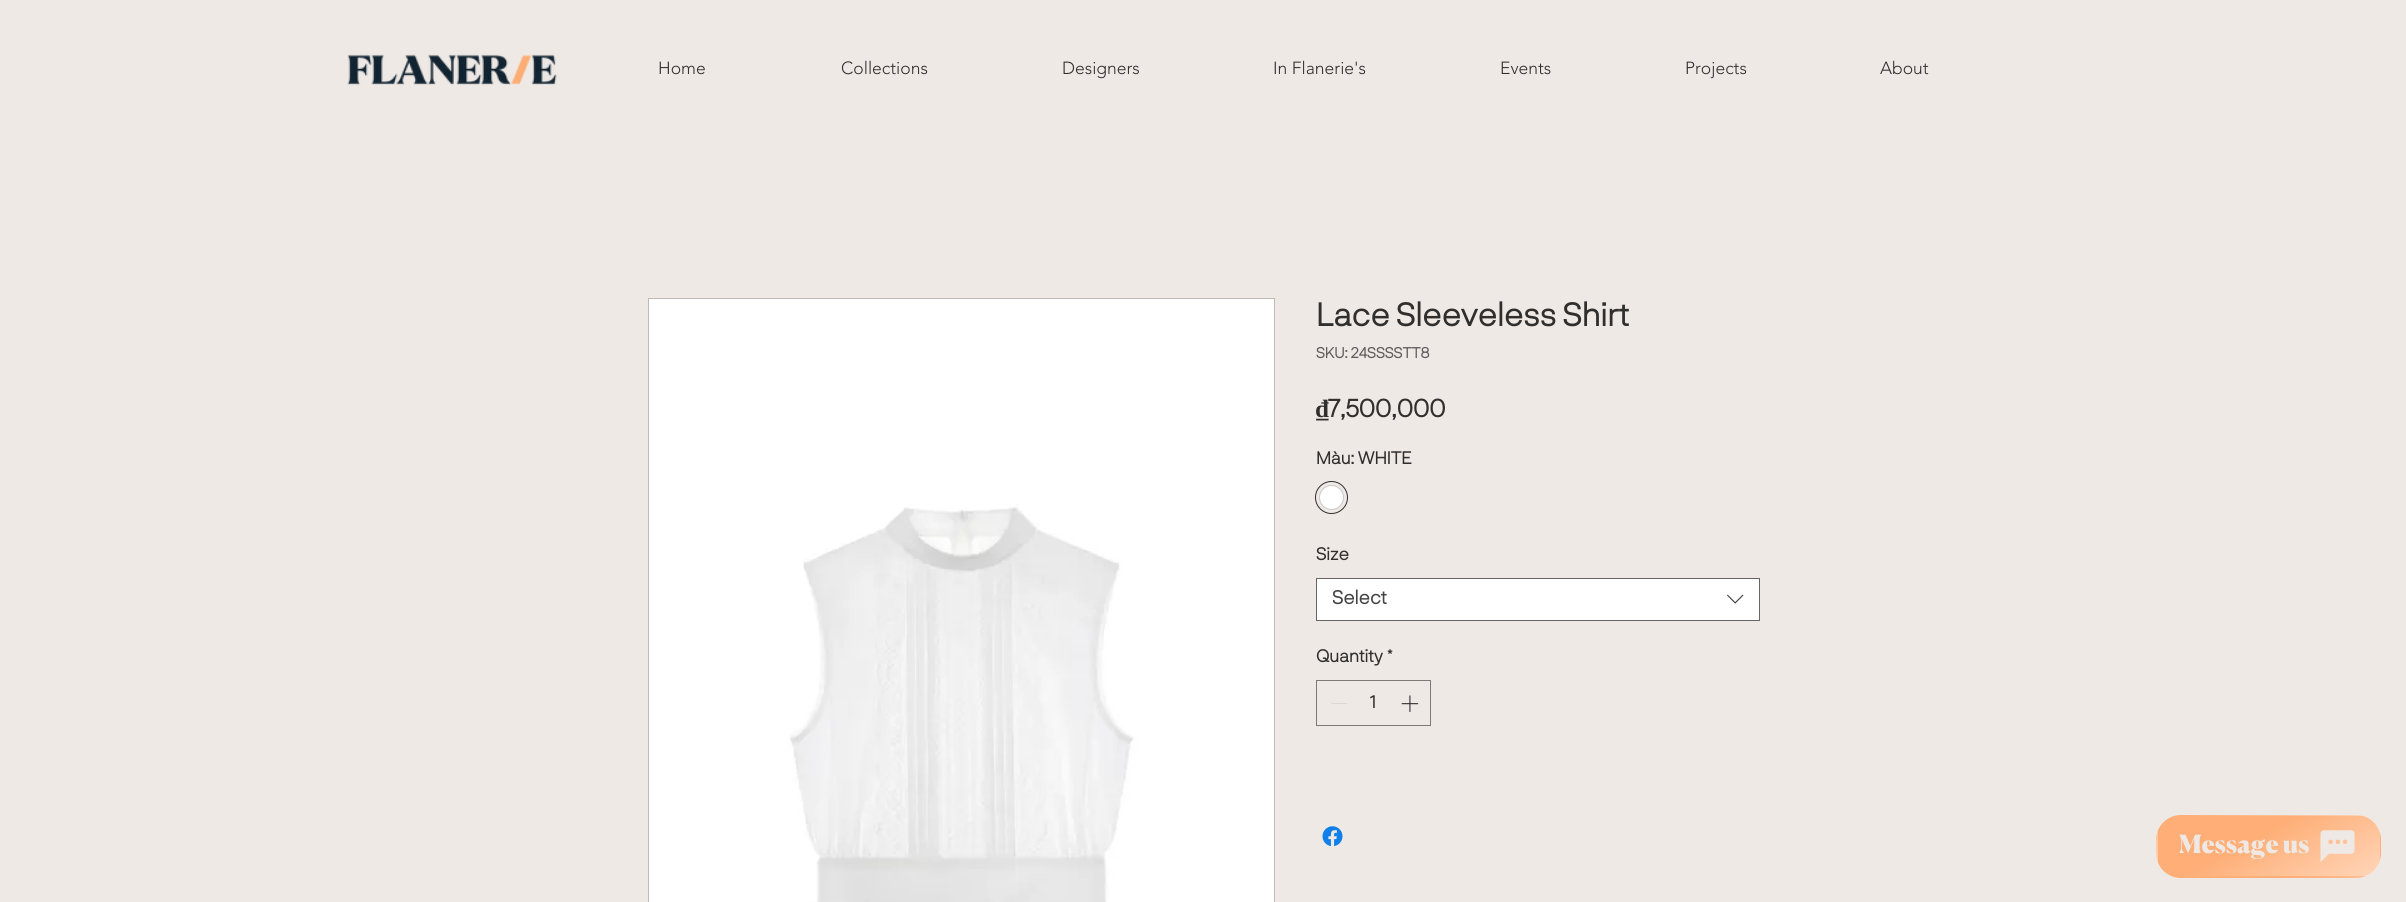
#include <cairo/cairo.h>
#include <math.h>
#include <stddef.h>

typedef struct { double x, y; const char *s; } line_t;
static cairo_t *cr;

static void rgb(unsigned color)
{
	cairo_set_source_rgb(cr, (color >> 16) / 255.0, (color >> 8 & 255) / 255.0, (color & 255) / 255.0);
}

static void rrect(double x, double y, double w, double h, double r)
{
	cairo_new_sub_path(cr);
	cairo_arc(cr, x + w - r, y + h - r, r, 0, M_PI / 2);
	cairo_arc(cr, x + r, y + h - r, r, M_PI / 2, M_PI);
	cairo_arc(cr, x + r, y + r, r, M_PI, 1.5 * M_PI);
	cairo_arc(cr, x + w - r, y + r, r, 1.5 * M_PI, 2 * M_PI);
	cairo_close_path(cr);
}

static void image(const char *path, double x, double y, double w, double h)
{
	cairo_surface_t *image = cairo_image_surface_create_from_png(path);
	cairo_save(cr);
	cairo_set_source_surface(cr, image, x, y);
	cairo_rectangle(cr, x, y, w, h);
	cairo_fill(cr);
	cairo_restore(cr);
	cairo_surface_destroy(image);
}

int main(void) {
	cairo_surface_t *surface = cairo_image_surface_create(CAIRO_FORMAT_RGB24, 2406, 902);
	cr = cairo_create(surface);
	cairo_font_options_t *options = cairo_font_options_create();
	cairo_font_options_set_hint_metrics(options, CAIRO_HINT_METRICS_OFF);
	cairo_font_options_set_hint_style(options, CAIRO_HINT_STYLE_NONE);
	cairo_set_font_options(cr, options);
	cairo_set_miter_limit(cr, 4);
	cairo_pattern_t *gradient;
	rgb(0xefe9e5);
	cairo_paint(cr);
	image("img/1.png", 347, 54, 210, 31);
	cairo_rectangle(cr, 648.5, 298.5, 626, 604);
	rgb(0xbfbab7);
	cairo_set_line_width(cr, 1);
	cairo_stroke(cr);
	image("img/2.png", 649, 299, 625, 603);
	cairo_arc(cr, 1331.5, 497.5, 16, 0, 2 * M_PI);
	rgb(0x302f2e);
	cairo_stroke(cr);
	rgb(0xffffff);
	cairo_arc(cr, 1331.5, 497.5, 12, 0, 2 * M_PI);
	cairo_fill_preserve(cr);
	rgb(0xc9c9c9);
	cairo_stroke(cr);
	rgb(0xffffff);
	cairo_rectangle(cr, 1316.5, 578.5, 443, 42);
	cairo_fill_preserve(cr);
	rgb(0x666666);
	cairo_stroke(cr);
	image("img/3.png", 1727, 594, 17, 10);
	cairo_rectangle(cr, 1316.5, 680.5, 114, 45);
	rgb(0x7c7977);
	cairo_stroke(cr);
	rgb(0xdbd8d6);
	cairo_rectangle(cr, 1331, 703, 16, 1);
	cairo_fill(cr);
	image("img/4.png", 1401, 695, 18, 17);
	image("img/5.png", 1322, 826, 21, 21);
	cairo_save(cr);
	rrect(2156, 815, 225, 63, 25);
	cairo_clip(cr);
	gradient = cairo_pattern_create_linear(2232, 717, 2306, 856);
	cairo_pattern_add_color_stop_rgba(gradient, 0.4, 0.996, 0.682, 0.463, 1);
	cairo_pattern_add_color_stop_rgba(gradient, 1, 1, 0.839, 0.729, 1);
	cairo_set_source(cr, gradient);
	cairo_pattern_destroy(gradient);
	cairo_rectangle(cr, 2174, 815, 189, 1);
	cairo_fill(cr);
	gradient = cairo_pattern_create_linear(2009, 777, 2083, 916);
	cairo_pattern_add_color_stop_rgba(gradient, 0.4, 0.996, 0.682, 0.463, 1);
	cairo_pattern_add_color_stop_rgba(gradient, 1, 1, 0.839, 0.729, 1);
	cairo_set_source(cr, gradient);
	cairo_pattern_destroy(gradient);
	cairo_rectangle(cr, 2156, 830, 2, 33);
	cairo_fill(cr);
	gradient = cairo_pattern_create_linear(2232, 777, 2306, 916);
	cairo_pattern_add_color_stop_rgba(gradient, 0.4, 0.996, 0.682, 0.463, 1);
	cairo_pattern_add_color_stop_rgba(gradient, 1, 1, 0.839, 0.729, 1);
	cairo_set_source(cr, gradient);
	cairo_pattern_destroy(gradient);
	cairo_rectangle(cr, 2158, 816, 222, 60);
	cairo_fill(cr);
	gradient = cairo_pattern_create_linear(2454, 777, 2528, 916);
	cairo_pattern_add_color_stop_rgba(gradient, 0.4, 0.996, 0.682, 0.463, 1);
	cairo_pattern_add_color_stop_rgba(gradient, 1, 1, 0.839, 0.729, 1);
	cairo_set_source(cr, gradient);
	cairo_pattern_destroy(gradient);
	cairo_rectangle(cr, 2380, 833, 1, 27);
	cairo_fill(cr);
	gradient = cairo_pattern_create_linear(2232, 837, 2306, 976);
	cairo_pattern_add_color_stop_rgba(gradient, 0.4, 0.996, 0.682, 0.463, 1);
	cairo_pattern_add_color_stop_rgba(gradient, 1, 1, 0.839, 0.729, 1);
	cairo_set_source(cr, gradient);
	cairo_pattern_destroy(gradient);
	cairo_rectangle(cr, 2171, 876, 195, 2);
	cairo_fill(cr);
	cairo_restore(cr);
	image("img/6.png", 2320, 830, 35, 32);
	cairo_select_font_face(cr, "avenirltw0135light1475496 Light", CAIRO_FONT_SLANT_NORMAL, CAIRO_FONT_WEIGHT_NORMAL);
	cairo_set_font_size(cr, 17.5);
	rgb(0x302f2e);
	{
		static const line_t items[] = {
			{658, 74, "Home"},
			{841, 74, "Collections"},
			{1062, 74, "Designers"},
			{1273, 74, "In Flanerie's"},
			{1500, 74, "Events"},
			{1685, 74, "Projects"},
			{1880, 74, "About"},
		};
		for (size_t i = 0; i < sizeof items / sizeof *items; i++) {
			cairo_move_to(cr, items[i].x, items[i].y);
			cairo_show_text(cr, items[i].s);
		}
	}
	cairo_select_font_face(cr, "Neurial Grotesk", CAIRO_FONT_SLANT_NORMAL, CAIRO_FONT_WEIGHT_BOLD);
	cairo_set_font_size(cr, 32.5);
	cairo_move_to(cr, 1316, 326);
	cairo_show_text(cr, "Lace Sleeveless Shirt");
	cairo_set_font_size(cr, 15);
	rgb(0x605d5c);
	cairo_move_to(cr, 1316, 358);
	cairo_show_text(cr, "SKU: 24SSSSTT8");
	cairo_select_font_face(cr, "Liberation Serif", CAIRO_FONT_SLANT_NORMAL, CAIRO_FONT_WEIGHT_BOLD);
	cairo_set_font_size(cr, 25);
	rgb(0x302f2e);
	cairo_move_to(cr, 1316, 417);
	cairo_show_text(cr, "₫");
	cairo_select_font_face(cr, "Neurial Grotesk", CAIRO_FONT_SLANT_NORMAL, CAIRO_FONT_WEIGHT_BOLD);
	cairo_move_to(cr, 1328, 417);
	cairo_show_text(cr, "7,500,000");
	cairo_set_font_size(cr, 17.5);
	cairo_move_to(cr, 1316, 464);
	cairo_show_text(cr, "Màu: WHITE");
	cairo_move_to(cr, 1316, 560);
	cairo_show_text(cr, "Size");
	cairo_save(cr);
	cairo_rectangle(cr, 1333, 589, 383, 21);
	cairo_clip(cr);
	cairo_set_font_size(cr, 19);
	rgb(0x444444);
	cairo_move_to(cr, 1332, 604);
	cairo_show_text(cr, "Select");
	cairo_restore(cr);
	{
		static const line_t items[] = {
			{1316, 662, "Quantity"},
			{1387, 662, "*"},
			{1370, 708, "1"},
		};
		for (size_t i = 0; i < sizeof items / sizeof *items; i++) {
			cairo_move_to(cr, items[i].x, items[i].y);
			cairo_show_text(cr, items[i].s);
		}
	}
	cairo_select_font_face(cr, "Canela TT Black", CAIRO_FONT_SLANT_NORMAL, CAIRO_FONT_WEIGHT_NORMAL);
	cairo_set_font_size(cr, 25);
	rgb(0xefe9e5);
	cairo_move_to(cr, 2179, 853);
	cairo_show_text(cr, "Message us");
	cairo_surface_write_to_png(surface, "page.png");
	cairo_font_options_destroy(options);
	cairo_destroy(cr);
	cairo_surface_destroy(surface);
	return 0;
}
